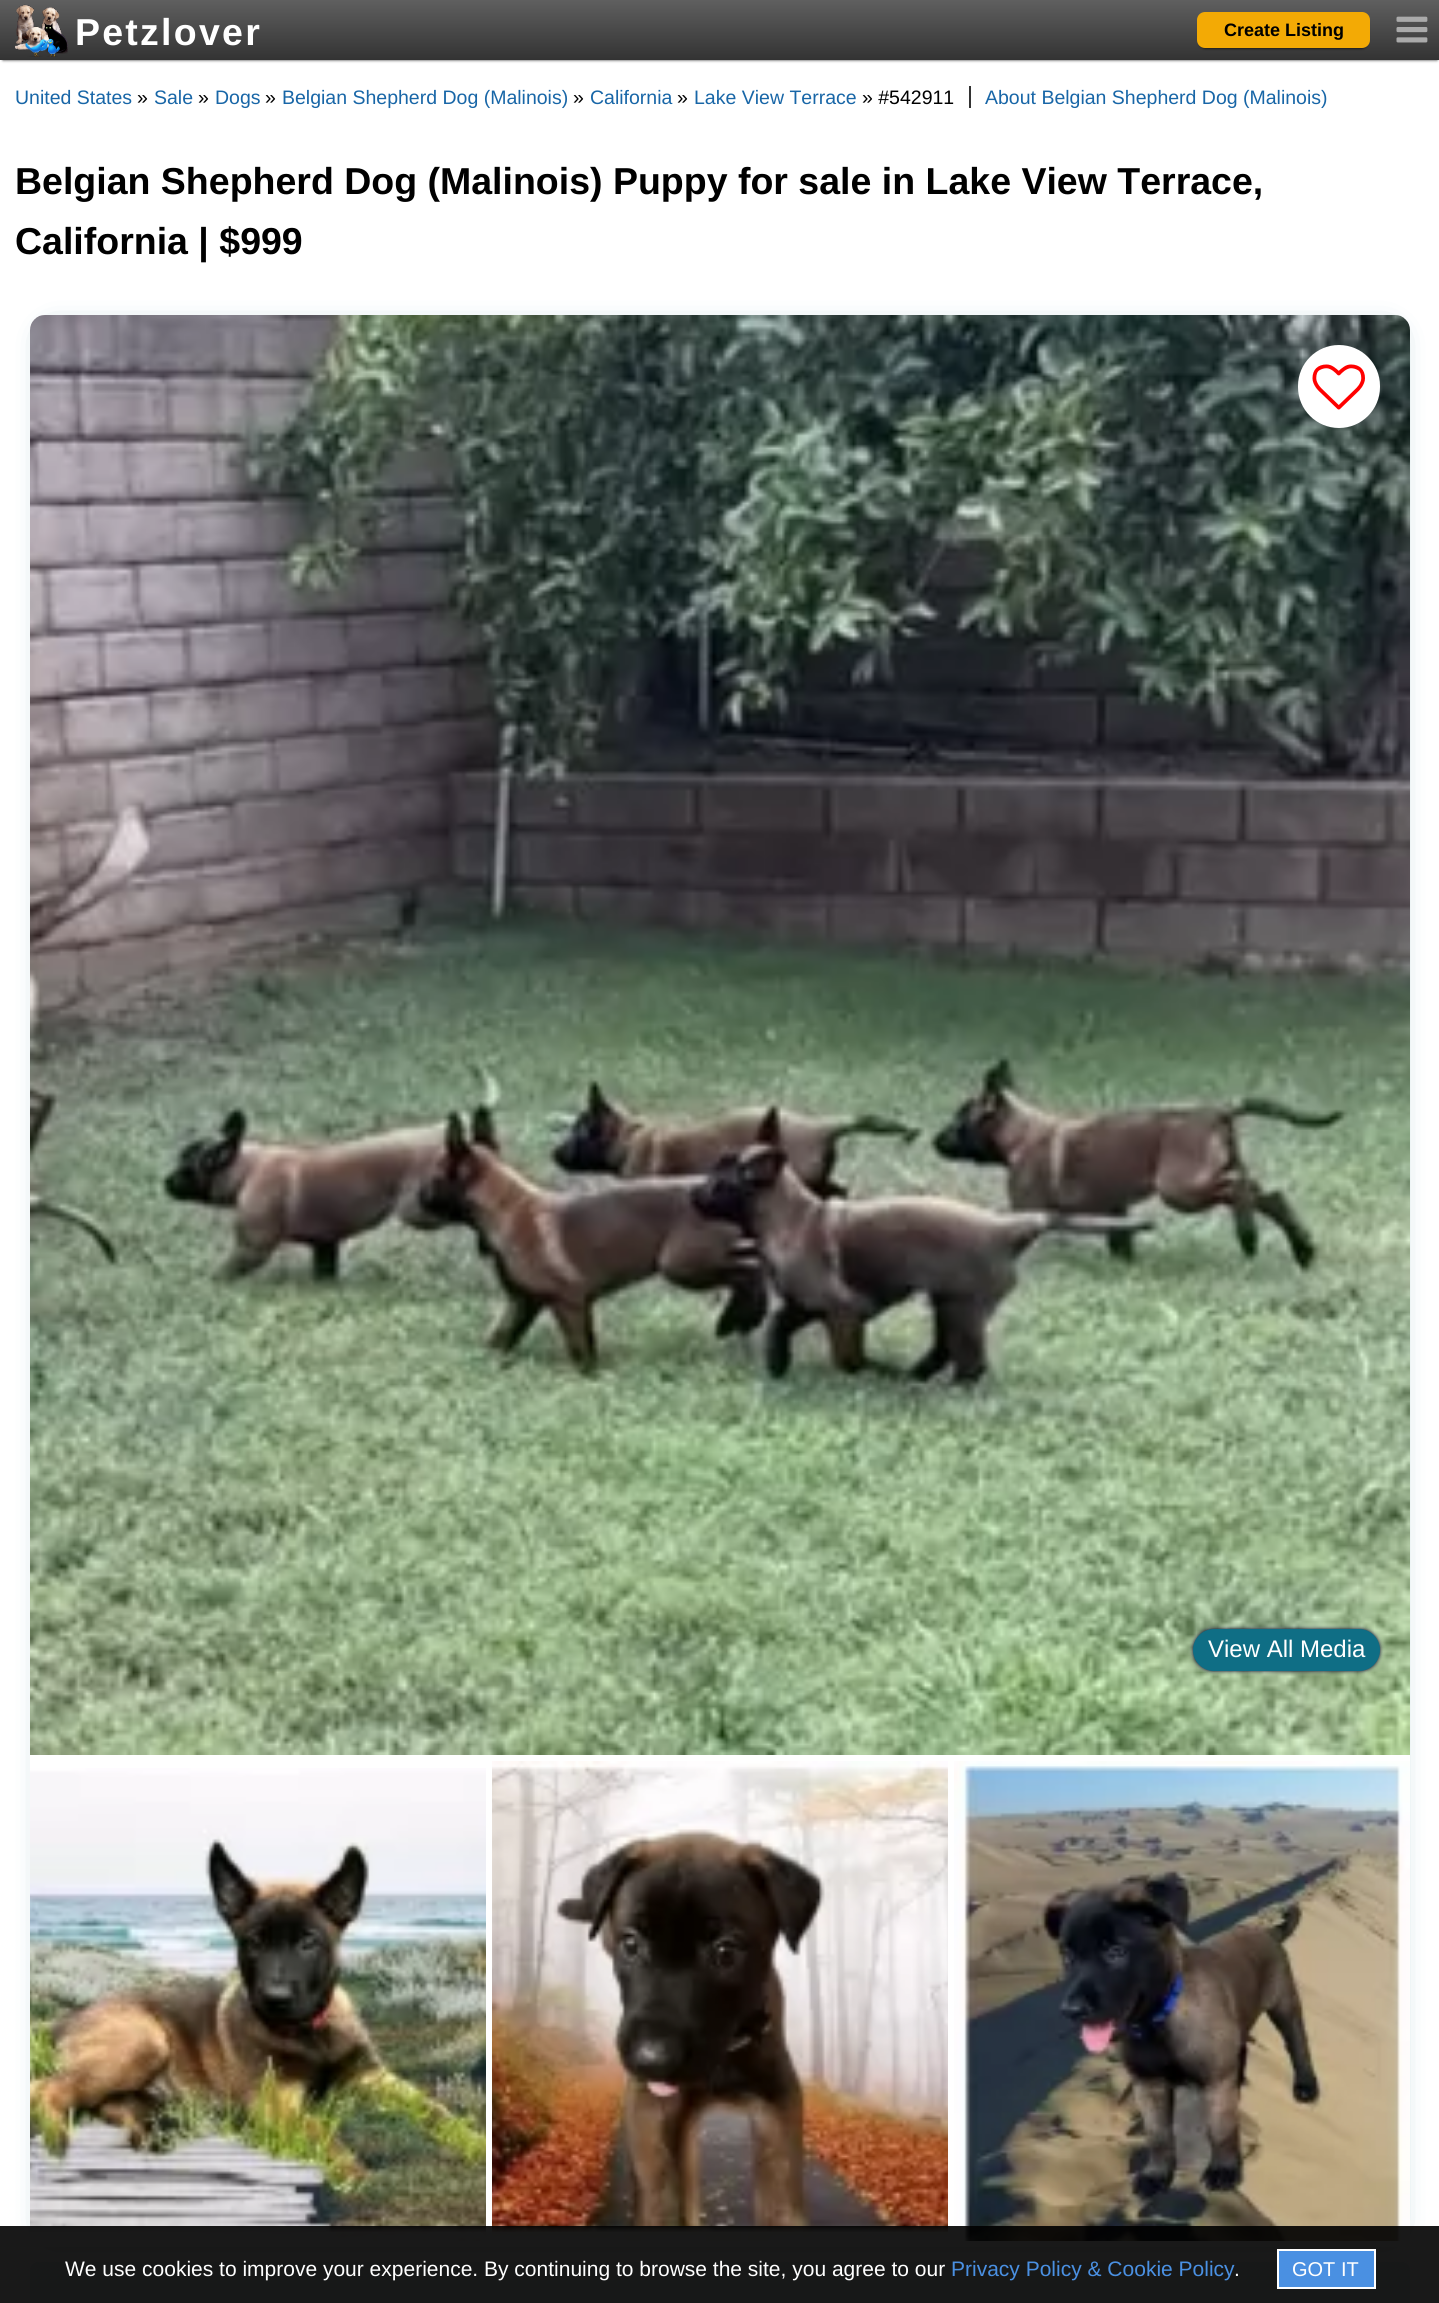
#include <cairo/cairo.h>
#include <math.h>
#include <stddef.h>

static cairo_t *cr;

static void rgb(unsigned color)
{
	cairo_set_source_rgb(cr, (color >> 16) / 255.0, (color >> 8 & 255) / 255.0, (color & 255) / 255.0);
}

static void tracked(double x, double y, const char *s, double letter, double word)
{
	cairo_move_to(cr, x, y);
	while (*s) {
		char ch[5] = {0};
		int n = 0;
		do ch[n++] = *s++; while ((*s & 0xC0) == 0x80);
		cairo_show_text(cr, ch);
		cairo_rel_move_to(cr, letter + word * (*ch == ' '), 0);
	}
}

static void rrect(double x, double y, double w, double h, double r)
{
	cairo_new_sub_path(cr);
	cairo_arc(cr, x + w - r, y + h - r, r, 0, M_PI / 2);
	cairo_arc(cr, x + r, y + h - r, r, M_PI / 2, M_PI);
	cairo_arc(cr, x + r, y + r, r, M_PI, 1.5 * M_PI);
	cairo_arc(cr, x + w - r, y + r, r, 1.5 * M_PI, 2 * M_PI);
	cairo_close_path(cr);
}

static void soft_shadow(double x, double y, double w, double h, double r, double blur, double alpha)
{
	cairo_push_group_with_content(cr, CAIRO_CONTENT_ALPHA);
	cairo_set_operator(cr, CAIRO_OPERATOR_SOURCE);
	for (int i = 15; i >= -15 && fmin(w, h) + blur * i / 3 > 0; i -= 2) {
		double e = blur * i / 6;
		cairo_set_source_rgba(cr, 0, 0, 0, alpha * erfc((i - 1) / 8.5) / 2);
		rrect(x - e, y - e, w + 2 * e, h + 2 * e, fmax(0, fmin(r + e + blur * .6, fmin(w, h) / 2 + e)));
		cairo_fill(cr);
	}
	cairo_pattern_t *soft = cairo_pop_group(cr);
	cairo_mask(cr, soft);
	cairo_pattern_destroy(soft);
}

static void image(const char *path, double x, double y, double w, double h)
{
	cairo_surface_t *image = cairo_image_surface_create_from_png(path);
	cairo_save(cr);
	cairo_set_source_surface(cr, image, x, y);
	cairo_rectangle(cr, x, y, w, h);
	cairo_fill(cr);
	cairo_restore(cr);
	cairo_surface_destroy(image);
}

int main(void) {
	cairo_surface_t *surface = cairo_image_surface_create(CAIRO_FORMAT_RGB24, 1439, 2303);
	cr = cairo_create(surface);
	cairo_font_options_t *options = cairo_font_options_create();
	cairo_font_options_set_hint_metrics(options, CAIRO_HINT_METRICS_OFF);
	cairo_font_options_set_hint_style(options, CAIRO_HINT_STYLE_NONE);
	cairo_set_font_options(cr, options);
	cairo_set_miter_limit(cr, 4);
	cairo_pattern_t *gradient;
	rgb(0xffffff);
	cairo_paint(cr);
	rgb(0x000000);
	soft_shadow(3, 6, 1434, 54, 0, 1.5, 0.82);
	gradient = cairo_pattern_create_linear(720, 0, 720, 60);
	cairo_pattern_add_color_stop_rgba(gradient, 0, 0.373, 0.373, 0.373, 1);
	cairo_pattern_add_color_stop_rgba(gradient, 1, 0.2, 0.2, 0.2, 1);
	cairo_set_source(cr, gradient);
	cairo_pattern_destroy(gradient);
	cairo_rectangle(cr, 0, 0, 1439, 60);
	cairo_fill(cr);
	image("img/1.png", 15, 4, 53, 53);
	rgb(0x000000);
	soft_shadow(1200, 18, 167, 30, 5, 1.5, 1);
	rgb(0xf3aa05);
	rrect(1197, 12, 173, 36, 8);
	cairo_fill(cr);
	image("img/2.png", 1396, 16, 32, 27);
	rgb(0x333333);
	cairo_rectangle(cr, 969, 86, 2, 22);
	cairo_fill(cr);
	rgb(0xecf5f8);
	cairo_new_path(cr);
	cairo_move_to(cr, 38, 2262);
	cairo_line_to(cr, 1402, 2262);
	cairo_curve_to(cr, 1406.5, 2262, 1410, 2265.5, 1410, 2270);
	cairo_line_to(cr, 1410, 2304);
	cairo_line_to(cr, 30, 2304);
	cairo_line_to(cr, 30, 2270);
	cairo_curve_to(cr, 30, 2265.5, 33.5, 2262, 38, 2262);
	cairo_close_path(cr);
	cairo_fill(cr);
	cairo_save(cr);
	cairo_set_fill_rule(cr, CAIRO_FILL_RULE_EVEN_ODD);
	cairo_new_path(cr);
	cairo_move_to(cr, 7, 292);
	cairo_line_to(cr, 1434, 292);
	cairo_line_to(cr, 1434, 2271);
	cairo_line_to(cr, 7, 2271);
	cairo_close_path(cr);
	cairo_move_to(cr, 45, 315);
	cairo_line_to(cr, 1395, 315);
	cairo_curve_to(cr, 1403.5, 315, 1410, 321.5, 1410, 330);
	cairo_line_to(cr, 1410, 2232);
	cairo_curve_to(cr, 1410, 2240.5, 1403.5, 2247, 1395, 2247);
	cairo_line_to(cr, 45, 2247);
	cairo_curve_to(cr, 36.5, 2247, 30, 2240.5, 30, 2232);
	cairo_line_to(cr, 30, 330);
	cairo_curve_to(cr, 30, 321.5, 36.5, 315, 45, 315);
	cairo_close_path(cr);
	cairo_clip(cr);
	rgb(0x0f6e85);
	soft_shadow(53, 338, 1335, 1887, 0, 15, 1);
	cairo_restore(cr);
	image("img/3.png", 30, 315, 1380, 1440);
	rgb(0xffffff);
	rrect(1298, 345, 82, 83, 41);
	cairo_fill(cr);
	image("img/4.png", 1312, 364, 53, 46);
	rgb(0x0d0633);
	soft_shadow(1193, 1629, 187, 42, 21, 2, 1);
	rgb(0x0f6e85);
	rrect(1193, 1629, 187, 42, 21);
	cairo_fill(cr);
	image("img/5.png", 30, 1768, 456, 473);
	image("img/6.png", 492, 1761, 456, 480);
	image("img/7.png", 954, 1761, 456, 480);
	cairo_set_source_rgba(cr, 0, 0, 0, 0.9);
	cairo_rectangle(cr, 0, 2226, 1439, 77);
	cairo_fill(cr);
	rgb(0x4a90e2);
	cairo_rectangle(cr, 1278, 2250, 97, 38);
	cairo_fill_preserve(cr);
	rgb(0xffffff);
	cairo_stroke(cr);
	cairo_select_font_face(cr, "Liberation Sans", CAIRO_FONT_SLANT_NORMAL, CAIRO_FONT_WEIGHT_BOLD);
	cairo_set_font_size(cr, 37.5);
	tracked(75, 45, "Petzlover", 2.25, 0);
	cairo_set_font_size(cr, 18);
	rgb(0x000000);
	cairo_move_to(cr, 1224, 36);
	cairo_show_text(cr, "Create Listing");
	cairo_select_font_face(cr, "Liberation Sans", CAIRO_FONT_SLANT_NORMAL, CAIRO_FONT_WEIGHT_NORMAL);
	cairo_set_font_size(cr, 19.5);
	rgb(0x1866a7);
	cairo_move_to(cr, 15, 104);
	cairo_show_text(cr, "United States");
	rgb(0x000000);
	cairo_move_to(cr, 137, 104);
	cairo_show_text(cr, "»");
	rgb(0x1866a7);
	cairo_move_to(cr, 154, 104);
	cairo_show_text(cr, "Sale");
	rgb(0x000000);
	cairo_move_to(cr, 198, 104);
	cairo_show_text(cr, "»");
	rgb(0x1866a7);
	cairo_move_to(cr, 215, 104);
	cairo_show_text(cr, "Dogs");
	rgb(0x000000);
	cairo_move_to(cr, 265, 104);
	cairo_show_text(cr, "»");
	rgb(0x1866a7);
	cairo_move_to(cr, 282, 104);
	cairo_show_text(cr, "Belgian Shepherd Dog (Malinois)");
	rgb(0x000000);
	cairo_move_to(cr, 573, 104);
	cairo_show_text(cr, "»");
	rgb(0x1866a7);
	cairo_move_to(cr, 590, 104);
	cairo_show_text(cr, "California");
	rgb(0x000000);
	cairo_move_to(cr, 677, 104);
	cairo_show_text(cr, "»");
	rgb(0x1866a7);
	cairo_move_to(cr, 694, 104);
	cairo_show_text(cr, "Lake View Terrace");
	rgb(0x000000);
	cairo_move_to(cr, 862, 104);
	cairo_show_text(cr, "» #542911");
	rgb(0x1866a7);
	cairo_move_to(cr, 985, 104);
	cairo_show_text(cr, "About Belgian Shepherd Dog (Malinois)");
	cairo_select_font_face(cr, "Liberation Sans", CAIRO_FONT_SLANT_NORMAL, CAIRO_FONT_WEIGHT_BOLD);
	cairo_set_font_size(cr, 37.5);
	rgb(0x000000);
	cairo_move_to(cr, 15, 194);
	cairo_show_text(cr, "Belgian Shepherd Dog (Malinois) Puppy for sale in Lake View Terrace,");
	cairo_move_to(cr, 15, 254);
	cairo_show_text(cr, "California | $999");
	cairo_select_font_face(cr, "Liberation Sans", CAIRO_FONT_SLANT_NORMAL, CAIRO_FONT_WEIGHT_NORMAL);
	cairo_set_font_size(cr, 24);
	rgb(0xffffff);
	cairo_move_to(cr, 1208, 1657);
	cairo_show_text(cr, "View All Media");
	cairo_set_font_size(cr, 21);
	cairo_move_to(cr, 65, 2276);
	cairo_show_text(cr, "We use cookies to improve your experience. By continuing to browse the site, you agree to our");
	rgb(0x4a90e2);
	cairo_move_to(cr, 951, 2276);
	cairo_show_text(cr, "Privacy Policy & Cookie Policy");
	rgb(0xffffff);
	cairo_move_to(cr, 1234, 2276);
	cairo_show_text(cr, ".");
	cairo_set_font_size(cr, 20);
	cairo_move_to(cr, 1292, 2276);
	cairo_show_text(cr, "GOT IT");
	cairo_surface_write_to_png(surface, "page.png");
	cairo_font_options_destroy(options);
	cairo_destroy(cr);
	cairo_surface_destroy(surface);
	return 0;
}
